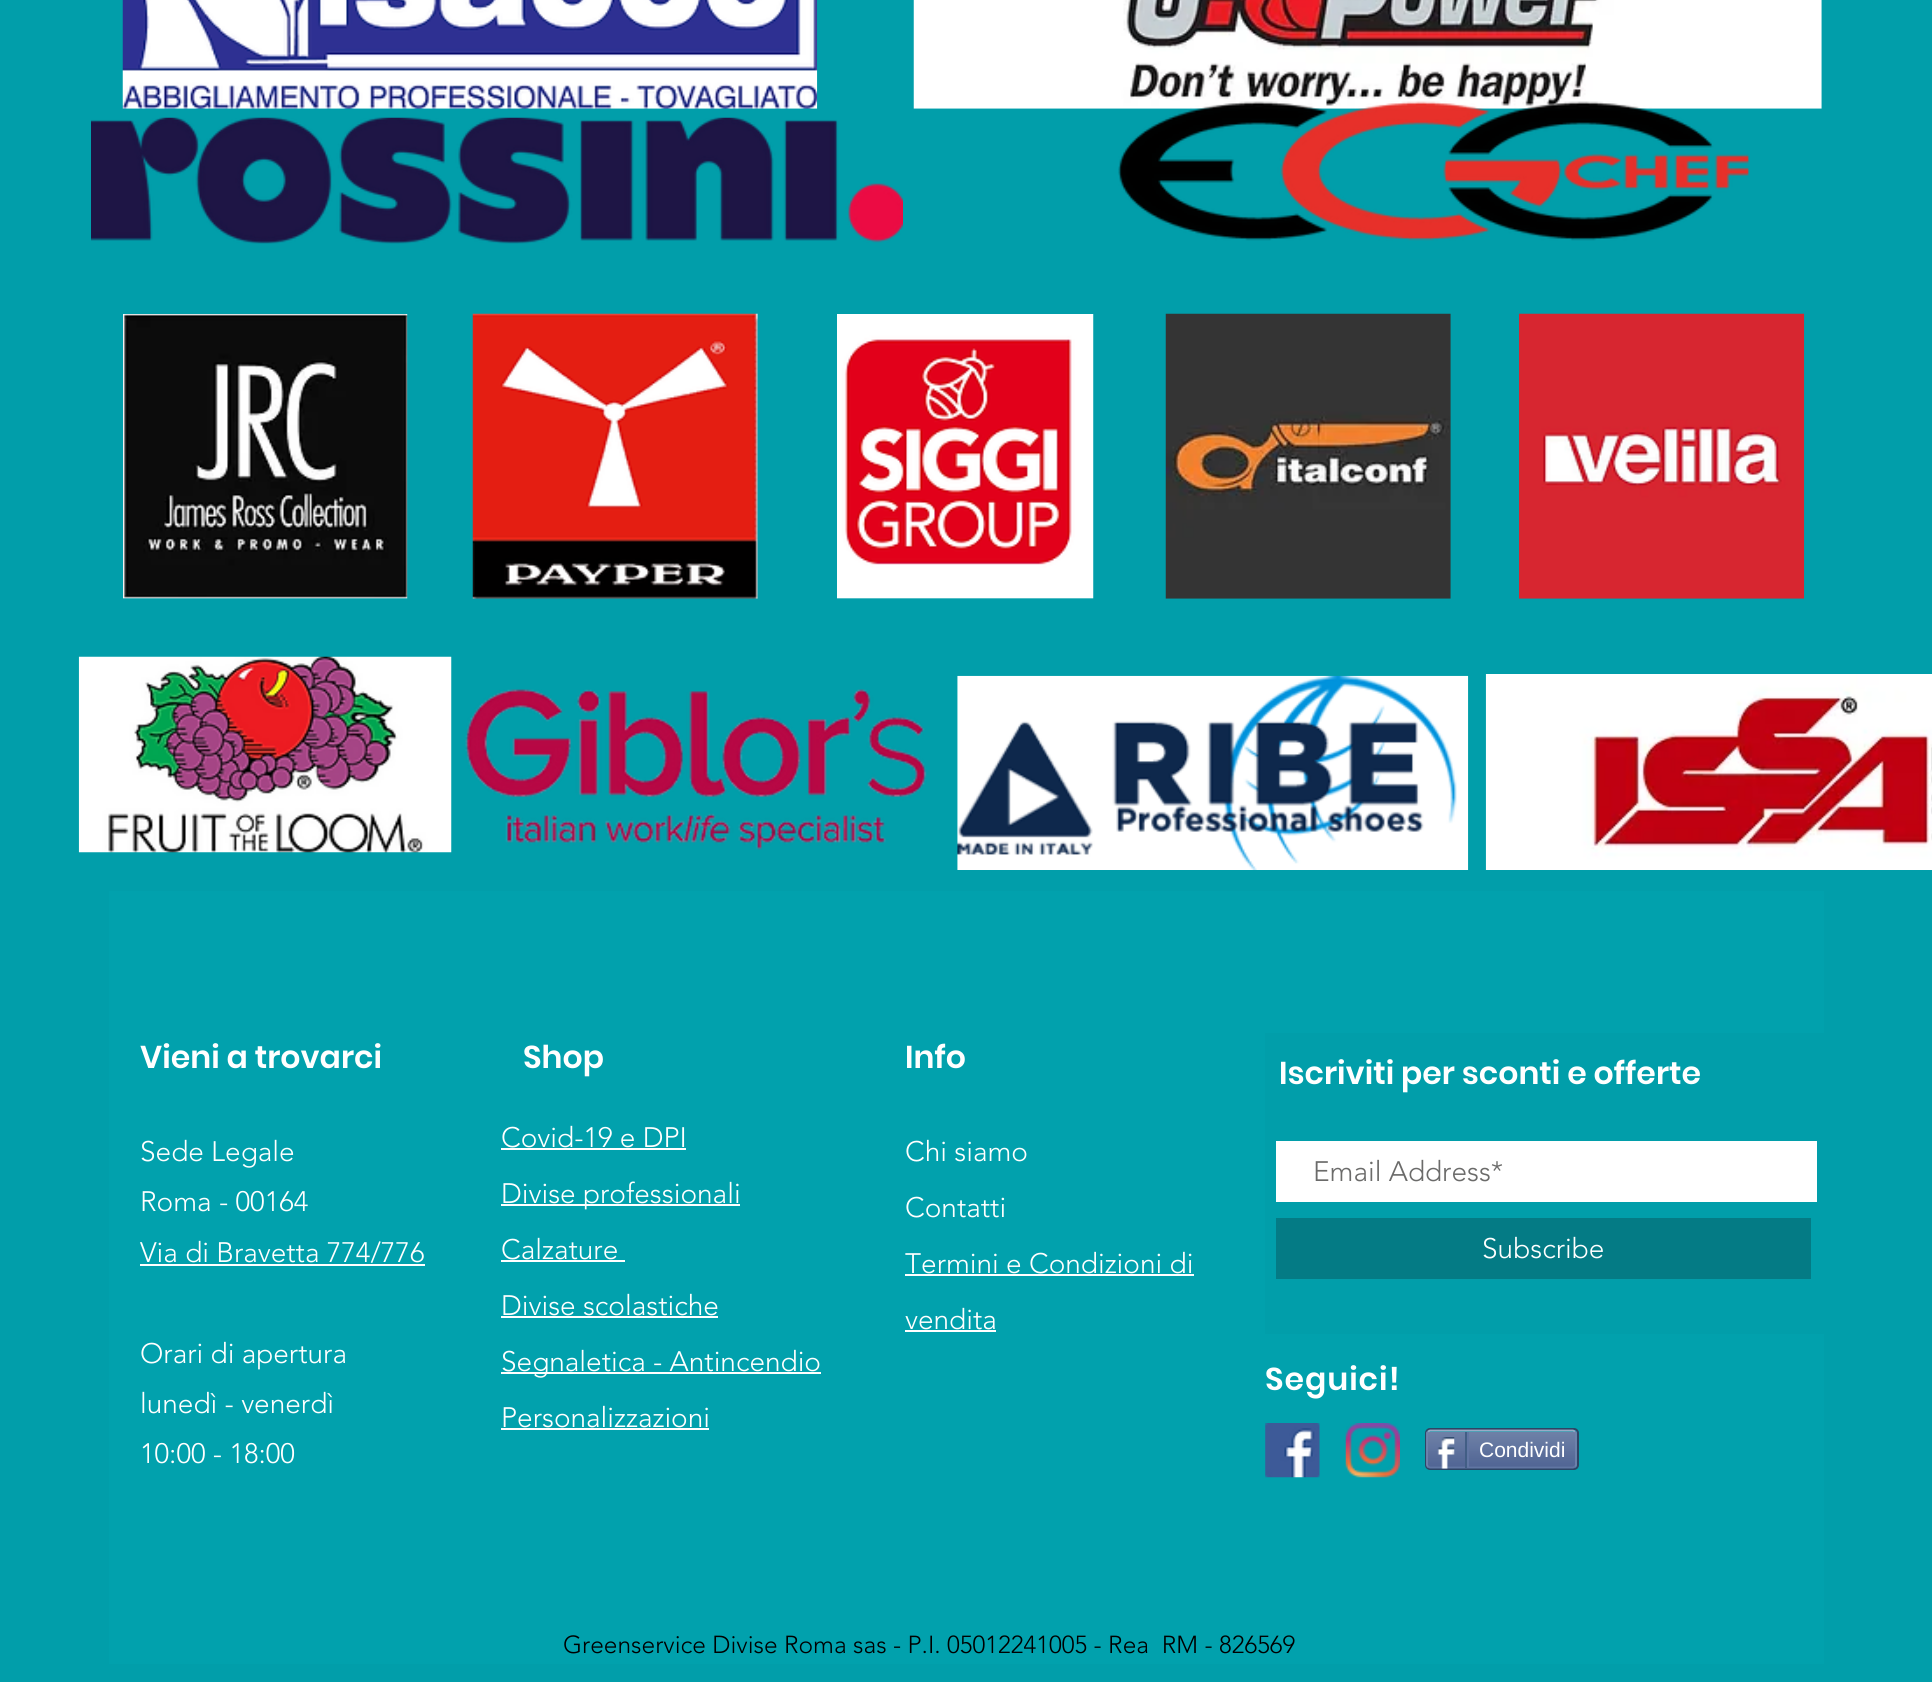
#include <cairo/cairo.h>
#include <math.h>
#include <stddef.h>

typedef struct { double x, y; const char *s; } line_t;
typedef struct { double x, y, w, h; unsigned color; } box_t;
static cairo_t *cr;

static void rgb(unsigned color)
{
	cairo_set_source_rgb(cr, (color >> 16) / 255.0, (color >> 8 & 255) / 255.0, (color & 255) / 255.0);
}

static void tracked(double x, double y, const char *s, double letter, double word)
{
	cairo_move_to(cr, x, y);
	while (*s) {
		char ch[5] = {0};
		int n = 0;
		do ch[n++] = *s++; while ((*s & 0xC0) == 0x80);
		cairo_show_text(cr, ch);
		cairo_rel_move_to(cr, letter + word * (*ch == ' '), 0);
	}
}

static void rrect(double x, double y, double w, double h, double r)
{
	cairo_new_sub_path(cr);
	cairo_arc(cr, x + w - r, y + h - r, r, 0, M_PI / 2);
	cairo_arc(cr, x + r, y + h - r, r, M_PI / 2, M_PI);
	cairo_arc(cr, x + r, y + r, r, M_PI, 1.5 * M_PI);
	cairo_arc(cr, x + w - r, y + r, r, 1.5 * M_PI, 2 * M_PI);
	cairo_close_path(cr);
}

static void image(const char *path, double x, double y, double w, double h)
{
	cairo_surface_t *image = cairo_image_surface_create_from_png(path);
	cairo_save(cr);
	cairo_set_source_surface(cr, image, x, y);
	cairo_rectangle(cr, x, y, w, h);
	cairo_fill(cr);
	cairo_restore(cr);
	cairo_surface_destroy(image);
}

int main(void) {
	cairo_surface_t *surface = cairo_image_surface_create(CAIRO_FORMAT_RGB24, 1932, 1682);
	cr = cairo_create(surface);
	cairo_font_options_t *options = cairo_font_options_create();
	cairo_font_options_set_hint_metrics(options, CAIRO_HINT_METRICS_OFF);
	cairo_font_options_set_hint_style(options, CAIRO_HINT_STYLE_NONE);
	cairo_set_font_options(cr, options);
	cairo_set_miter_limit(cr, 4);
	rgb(0x019eaa);
	cairo_paint(cr);
	image("img/1.png", 122, 0, 696, 109);
	image("img/2.png", 913, 0, 909, 109);
	image("img/3.png", 91, 117, 812, 127);
	image("img/4.png", 1118, 101, 631, 140);
	image("img/5.png", 123, 314, 285, 285);
	image("img/6.png", 472, 313, 286, 286);
	image("img/7.png", 837, 314, 257, 285);
	image("img/8.png", 1165, 313, 286, 286);
	image("img/9.png", 1519, 313, 286, 286);
	image("img/10.png", 78, 656, 374, 197);
	image("img/11.png", 465, 689, 462, 161);
	image("img/12.png", 957, 675, 512, 195);
	image("img/13.png", 1485, 674, 447, 196);
	{
		static const box_t items[] = {
			{109, 891, 1715, 773, 0x01a1ad},
			{140, 1264, 285, 2, 0xffffff},
			{501, 1148, 185, 2, 0xffffff},
			{501, 1204, 239, 2, 0xffffff},
			{501, 1260, 124, 2, 0xffffff},
			{501, 1316, 217, 2, 0xffffff},
			{501, 1372, 320, 2, 0xffffff},
			{501, 1428, 208, 2, 0xffffff},
			{905, 1274, 289, 2, 0xffffff},
			{905, 1330, 91, 2, 0xffffff},
			{1265, 1033, 559, 301, 0x019eaa},
			{1276, 1141, 541, 61, 0xffffff},
			{1276, 1218, 535, 61, 0x047b85},
		};
		for (size_t i = 0; i < sizeof items / sizeof *items; i++) {
			rgb(items[i].color);
			cairo_rectangle(cr, items[i].x, items[i].y, items[i].w, items[i].h);
			cairo_fill(cr);
		}
	}
	image("img/14.png", 1265, 1423, 55, 55);
	image("img/15.png", 1345, 1423, 55, 55);
	rrect(1426, 1429, 152, 40, 4);
	rgb(0x2d4565);
	cairo_stroke(cr);
	image("img/16.png", 1426, 1431, 151, 38);
	cairo_new_path(cr);
	cairo_move_to(cr, 1428, 1431.5);
	cairo_line_to(cr, 1430, 1430.5);
	cairo_line_to(cr, 1573, 1430.5);
	cairo_line_to(cr, 1575, 1431.5);
	rgb(0x9aabc6);
	cairo_set_line_width(cr, 1.8);
	cairo_stroke(cr);
	cairo_new_path(cr);
	cairo_move_to(cr, 1575, 1431.5);
	cairo_curve_to(cr, 1575.5, 1432, 1576, 1432.5, 1576, 1433);
	cairo_line_to(cr, 1576, 1465);
	cairo_curve_to(cr, 1576, 1465.5, 1575.5, 1466, 1575, 1466.5);
	rgb(0x6f83ad);
	cairo_stroke(cr);
	cairo_new_path(cr);
	cairo_move_to(cr, 1575, 1466.5);
	cairo_line_to(cr, 1573, 1467.5);
	cairo_line_to(cr, 1430, 1467.5);
	cairo_line_to(cr, 1428, 1466.5);
	rgb(0x6176a3);
	cairo_stroke(cr);
	cairo_new_path(cr);
	cairo_move_to(cr, 1428, 1466.5);
	cairo_curve_to(cr, 1427.5, 1466, 1427, 1465.5, 1427, 1465);
	cairo_line_to(cr, 1427, 1433);
	cairo_curve_to(cr, 1427, 1432.5, 1427.5, 1432, 1428, 1431.5);
	rgb(0x6f83ad);
	cairo_stroke(cr);
	image("img/17.png", 1437, 1437, 18, 32);
	rgb(0x425e85);
	cairo_rectangle(cr, 1465, 1432, 2, 36);
	cairo_fill(cr);
	rgb(0x6176a3);
	cairo_rectangle(cr, 1467, 1432, 2, 35);
	cairo_fill(cr);
	cairo_select_font_face(cr, "Poppins SemiBold", CAIRO_FONT_SLANT_NORMAL, CAIRO_FONT_WEIGHT_NORMAL);
	cairo_set_font_size(cr, 31.5);
	rgb(0xffffff);
	cairo_move_to(cr, 140, 1068);
	cairo_show_text(cr, "Vieni a trovarci");
	cairo_select_font_face(cr, "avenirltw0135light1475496 Light", CAIRO_FONT_SLANT_NORMAL, CAIRO_FONT_WEIGHT_NORMAL);
	cairo_set_font_size(cr, 28);
	{
		static const line_t items[] = {
			{140, 1161, "Sede Legale"},
			{140, 1211, "Roma - 00164"},
			{140, 1262, "Via di Bravetta 774/776"},
			{140, 1363, "Orari di apertura"},
			{140, 1413, "lunedì - venerdì"},
			{140, 1463, "10:00 - 18:00"},
		};
		for (size_t i = 0; i < sizeof items / sizeof *items; i++) {
			cairo_move_to(cr, items[i].x, items[i].y);
			cairo_show_text(cr, items[i].s);
		}
	}
	cairo_select_font_face(cr, "Poppins SemiBold", CAIRO_FONT_SLANT_NORMAL, CAIRO_FONT_WEIGHT_NORMAL);
	cairo_set_font_size(cr, 31.5);
	cairo_move_to(cr, 523, 1068);
	cairo_show_text(cr, "Shop");
	cairo_select_font_face(cr, "avenirltw0135light1475496 Light", CAIRO_FONT_SLANT_NORMAL, CAIRO_FONT_WEIGHT_NORMAL);
	cairo_set_font_size(cr, 28);
	{
		static const line_t items[] = {
			{501, 1147, "Covid-19 e DPI"},
			{501, 1203, "Divise professionali"},
			{501, 1259, "Calzature"},
			{501, 1315, "Divise scolastiche"},
			{501, 1371, "Segnaletica - Antincendio"},
			{501, 1427, "Personalizzazioni"},
		};
		for (size_t i = 0; i < sizeof items / sizeof *items; i++) {
			cairo_move_to(cr, items[i].x, items[i].y);
			cairo_show_text(cr, items[i].s);
		}
	}
	cairo_select_font_face(cr, "Poppins SemiBold", CAIRO_FONT_SLANT_NORMAL, CAIRO_FONT_WEIGHT_NORMAL);
	cairo_set_font_size(cr, 31.5);
	cairo_move_to(cr, 905, 1068);
	cairo_show_text(cr, "Info");
	cairo_select_font_face(cr, "avenirltw0135light1475496 Light", CAIRO_FONT_SLANT_NORMAL, CAIRO_FONT_WEIGHT_NORMAL);
	cairo_set_font_size(cr, 28);
	{
		static const line_t items[] = {
			{905, 1161, "Chi siamo"},
			{905, 1217, "Contatti"},
			{905, 1273, "Termini e Condizioni di"},
			{905, 1329, "vendita"},
		};
		for (size_t i = 0; i < sizeof items / sizeof *items; i++) {
			cairo_move_to(cr, items[i].x, items[i].y);
			cairo_show_text(cr, items[i].s);
		}
	}
	cairo_select_font_face(cr, "Poppins SemiBold", CAIRO_FONT_SLANT_NORMAL, CAIRO_FONT_WEIGHT_NORMAL);
	cairo_set_font_size(cr, 31.5);
	cairo_move_to(cr, 1279, 1084);
	cairo_show_text(cr, "Iscriviti per sconti e offerte");
	cairo_select_font_face(cr, "avenirltw0135light1475496 Light", CAIRO_FONT_SLANT_NORMAL, CAIRO_FONT_WEIGHT_NORMAL);
	cairo_set_font_size(cr, 28);
	rgb(0x6b6b6a);
	cairo_move_to(cr, 1313, 1181);
	cairo_show_text(cr, "Email Address*");
	rgb(0xffffff);
	cairo_move_to(cr, 1482, 1258);
	cairo_show_text(cr, "Subscribe");
	cairo_select_font_face(cr, "Poppins SemiBold", CAIRO_FONT_SLANT_NORMAL, CAIRO_FONT_WEIGHT_NORMAL);
	cairo_set_font_size(cr, 31.5);
	tracked(1265, 1390, "Seguici!", 1, 0);
	cairo_select_font_face(cr, "Liberation Sans", CAIRO_FONT_SLANT_NORMAL, CAIRO_FONT_WEIGHT_NORMAL);
	cairo_set_font_size(cr, 21);
	cairo_move_to(cr, 1479, 1457);
	cairo_show_text(cr, "Condividi");
	cairo_select_font_face(cr, "avenirltw0135light1475496 Light", CAIRO_FONT_SLANT_NORMAL, CAIRO_FONT_WEIGHT_NORMAL);
	cairo_set_font_size(cr, 24.5);
	rgb(0x000000);
	cairo_move_to(cr, 563, 1653);
	cairo_show_text(cr, "Greenservice Divise Roma sas - P.I. 05012241005 - Rea  RM - 826569");
	cairo_surface_write_to_png(surface, "page.png");
	cairo_font_options_destroy(options);
	cairo_destroy(cr);
	cairo_surface_destroy(surface);
	return 0;
}
